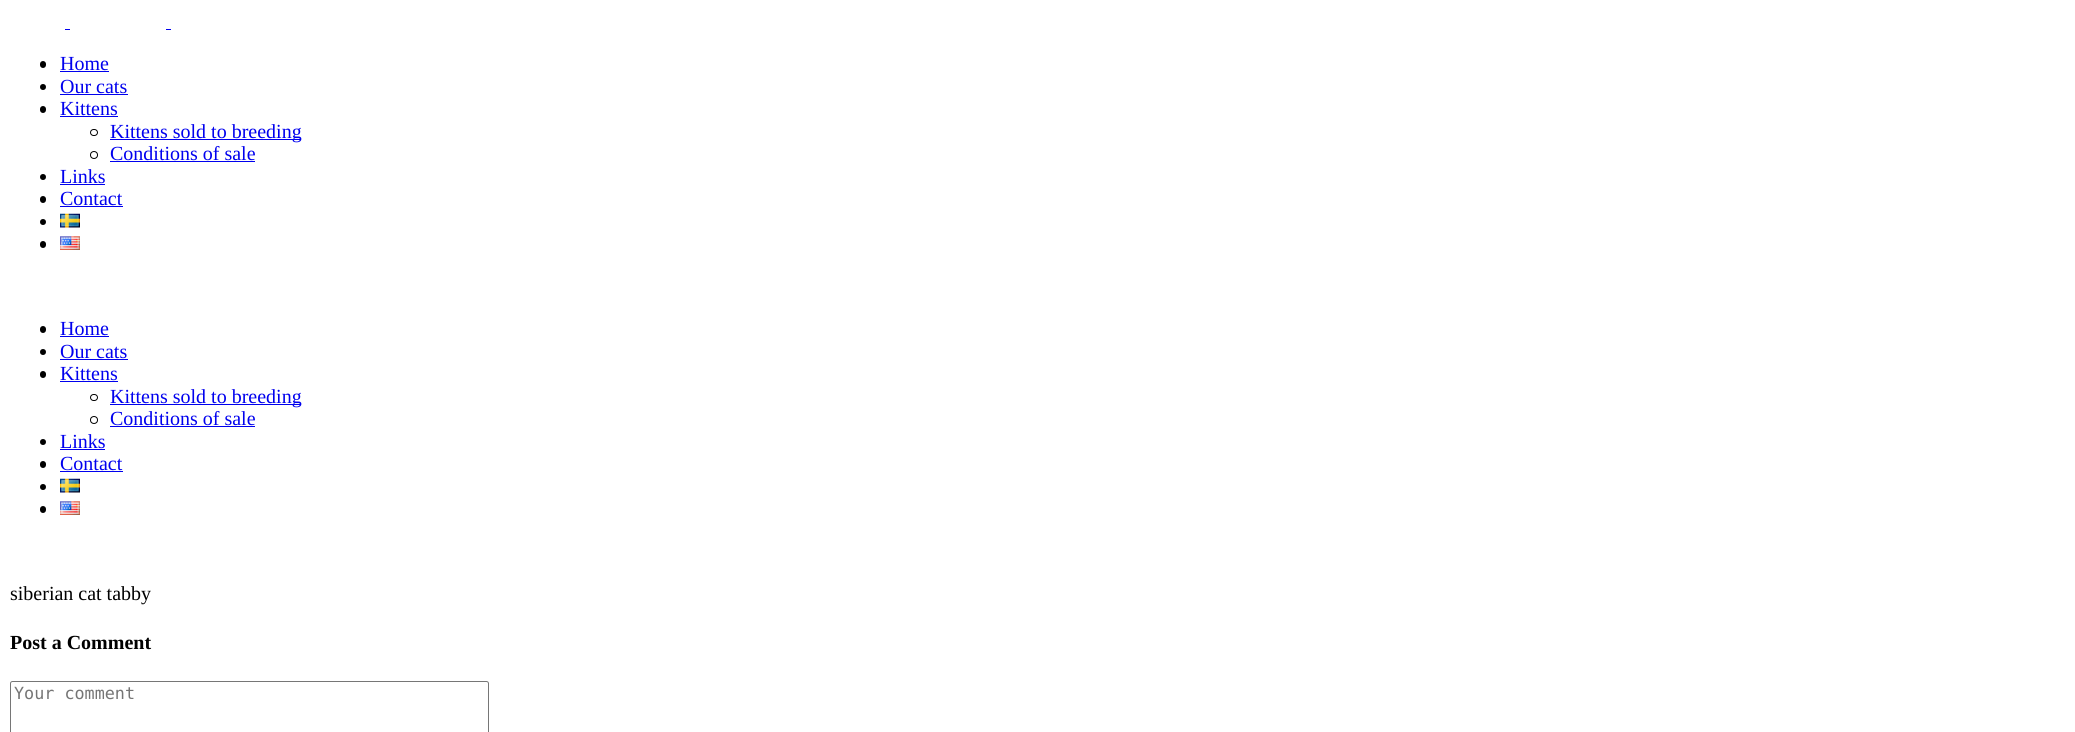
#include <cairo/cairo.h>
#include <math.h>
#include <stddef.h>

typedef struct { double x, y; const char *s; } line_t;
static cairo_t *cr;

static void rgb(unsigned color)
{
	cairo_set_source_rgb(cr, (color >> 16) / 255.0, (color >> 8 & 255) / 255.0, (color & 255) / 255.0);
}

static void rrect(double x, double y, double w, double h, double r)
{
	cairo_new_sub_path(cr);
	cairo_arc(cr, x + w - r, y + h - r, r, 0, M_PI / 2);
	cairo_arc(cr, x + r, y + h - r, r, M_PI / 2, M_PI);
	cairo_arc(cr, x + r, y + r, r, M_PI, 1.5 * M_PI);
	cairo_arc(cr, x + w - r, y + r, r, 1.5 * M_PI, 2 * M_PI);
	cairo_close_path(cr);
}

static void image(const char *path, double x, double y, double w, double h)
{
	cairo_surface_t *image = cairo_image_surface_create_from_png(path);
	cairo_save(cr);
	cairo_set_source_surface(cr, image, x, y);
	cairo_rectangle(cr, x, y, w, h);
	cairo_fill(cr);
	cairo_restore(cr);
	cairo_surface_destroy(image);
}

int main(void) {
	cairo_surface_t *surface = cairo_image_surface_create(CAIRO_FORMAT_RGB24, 2075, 732);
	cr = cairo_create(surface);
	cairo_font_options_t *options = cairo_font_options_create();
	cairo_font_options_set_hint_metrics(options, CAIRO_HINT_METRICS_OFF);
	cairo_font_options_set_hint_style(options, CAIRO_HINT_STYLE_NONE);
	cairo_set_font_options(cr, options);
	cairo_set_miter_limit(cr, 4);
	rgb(0xffffff);
	cairo_paint(cr);
	rgb(0x0000ee);
	cairo_rectangle(cr, 65, 29, 5, 1);
	cairo_fill(cr);
	cairo_rectangle(cr, 166, 29, 5, 1);
	cairo_fill(cr);
	rgb(0x000000);
	rrect(40, 61, 6, 7, 3);
	cairo_fill(cr);
	rgb(0x0000ee);
	cairo_rectangle(cr, 60, 71, 49, 1);
	cairo_fill(cr);
	rgb(0x000000);
	cairo_arc(cr, 43, 87, 3, 0, 2 * M_PI);
	cairo_fill(cr);
	rgb(0x0000ee);
	cairo_rectangle(cr, 60, 94, 68, 1);
	cairo_fill(cr);
	rgb(0x000000);
	rrect(40, 106, 6, 7, 3);
	cairo_fill(cr);
	rgb(0x0000ee);
	cairo_rectangle(cr, 60, 116, 58, 1);
	cairo_fill(cr);
	rrect(90.5, 129.5, 7, 6, 3);
	rgb(0x000000);
	cairo_set_line_width(cr, 1);
	cairo_stroke(cr);
	rgb(0x0000ee);
	cairo_rectangle(cr, 110, 139, 191, 1);
	cairo_fill(cr);
	cairo_arc(cr, 94, 155, 3.5, 0, 2 * M_PI);
	rgb(0x000000);
	cairo_stroke(cr);
	rgb(0x0000ee);
	cairo_rectangle(cr, 110, 161, 145, 1);
	cairo_fill(cr);
	rgb(0x000000);
	cairo_arc(cr, 43, 177, 3, 0, 2 * M_PI);
	cairo_fill(cr);
	rgb(0x0000ee);
	cairo_rectangle(cr, 60, 184, 45, 1);
	cairo_fill(cr);
	rgb(0x000000);
	rrect(40, 196, 6, 7, 3);
	cairo_fill(cr);
	rgb(0x0000ee);
	cairo_rectangle(cr, 60, 206, 63, 1);
	cairo_fill(cr);
	rgb(0x000000);
	cairo_arc(cr, 43, 222, 3, 0, 2 * M_PI);
	cairo_fill(cr);
	image("img/1.png", 60, 213, 20, 15);
	rrect(40, 241, 6, 7, 3);
	cairo_fill(cr);
	image("img/2.png", 60, 236, 20, 14);
	rrect(40, 326, 6, 7, 3);
	cairo_fill(cr);
	rgb(0x0000ee);
	cairo_rectangle(cr, 60, 336, 49, 1);
	cairo_fill(cr);
	rgb(0x000000);
	cairo_arc(cr, 43, 352, 3, 0, 2 * M_PI);
	cairo_fill(cr);
	rgb(0x0000ee);
	cairo_rectangle(cr, 60, 359, 68, 1);
	cairo_fill(cr);
	rgb(0x000000);
	rrect(40, 371, 6, 7, 3);
	cairo_fill(cr);
	rgb(0x0000ee);
	cairo_rectangle(cr, 60, 381, 58, 1);
	cairo_fill(cr);
	rrect(90.5, 394.5, 7, 6, 3);
	rgb(0x000000);
	cairo_stroke(cr);
	rgb(0x0000ee);
	cairo_rectangle(cr, 110, 404, 191, 1);
	cairo_fill(cr);
	cairo_arc(cr, 94, 420, 3.5, 0, 2 * M_PI);
	rgb(0x000000);
	cairo_stroke(cr);
	rgb(0x0000ee);
	cairo_rectangle(cr, 110, 426, 145, 1);
	cairo_fill(cr);
	rgb(0x000000);
	cairo_arc(cr, 43, 442, 3, 0, 2 * M_PI);
	cairo_fill(cr);
	rgb(0x0000ee);
	cairo_rectangle(cr, 60, 449, 45, 1);
	cairo_fill(cr);
	rgb(0x000000);
	rrect(40, 461, 6, 7, 3);
	cairo_fill(cr);
	rgb(0x0000ee);
	cairo_rectangle(cr, 60, 471, 63, 1);
	cairo_fill(cr);
	rgb(0x000000);
	cairo_arc(cr, 43, 487, 3, 0, 2 * M_PI);
	cairo_fill(cr);
	image("img/1.png", 60, 478, 20, 15);
	rrect(40, 506, 6, 7, 3);
	cairo_fill(cr);
	image("img/2.png", 60, 501, 20, 14);
	rrect(10.5, 681.5, 478, 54, 2);
	rgb(0x767676);
	cairo_stroke(cr);
	cairo_select_font_face(cr, "Liberation Serif", CAIRO_FONT_SLANT_NORMAL, CAIRO_FONT_WEIGHT_NORMAL);
	cairo_set_font_size(cr, 20);
	rgb(0x0000ee);
	{
		static const line_t items[] = {
			{60, 70, "Home"},
			{60, 93, "Our cats"},
			{60, 115, "Kittens"},
			{110, 138, "Kittens sold to breeding"},
			{110, 160, "Conditions of sale"},
			{60, 183, "Links"},
			{60, 205, "Contact"},
			{60, 335, "Home"},
			{60, 358, "Our cats"},
			{60, 380, "Kittens"},
			{110, 403, "Kittens sold to breeding"},
			{110, 425, "Conditions of sale"},
			{60, 448, "Links"},
			{60, 470, "Contact"},
		};
		for (size_t i = 0; i < sizeof items / sizeof *items; i++) {
			cairo_move_to(cr, items[i].x, items[i].y);
			cairo_show_text(cr, items[i].s);
		}
	}
	rgb(0x000000);
	cairo_move_to(cr, 10, 600);
	cairo_show_text(cr, "siberian cat tabby");
	cairo_select_font_face(cr, "Liberation Serif", CAIRO_FONT_SLANT_NORMAL, CAIRO_FONT_WEIGHT_BOLD);
	cairo_move_to(cr, 10, 649);
	cairo_show_text(cr, "Post a Comment");
	cairo_select_font_face(cr, "DejaVu Sans Mono", CAIRO_FONT_SLANT_NORMAL, CAIRO_FONT_WEIGHT_NORMAL);
	cairo_set_font_size(cr, 16.75);
	rgb(0x757575);
	cairo_move_to(cr, 14, 699);
	cairo_show_text(cr, "Your comment");
	cairo_surface_write_to_png(surface, "page.png");
	cairo_font_options_destroy(options);
	cairo_destroy(cr);
	cairo_surface_destroy(surface);
	return 0;
}
